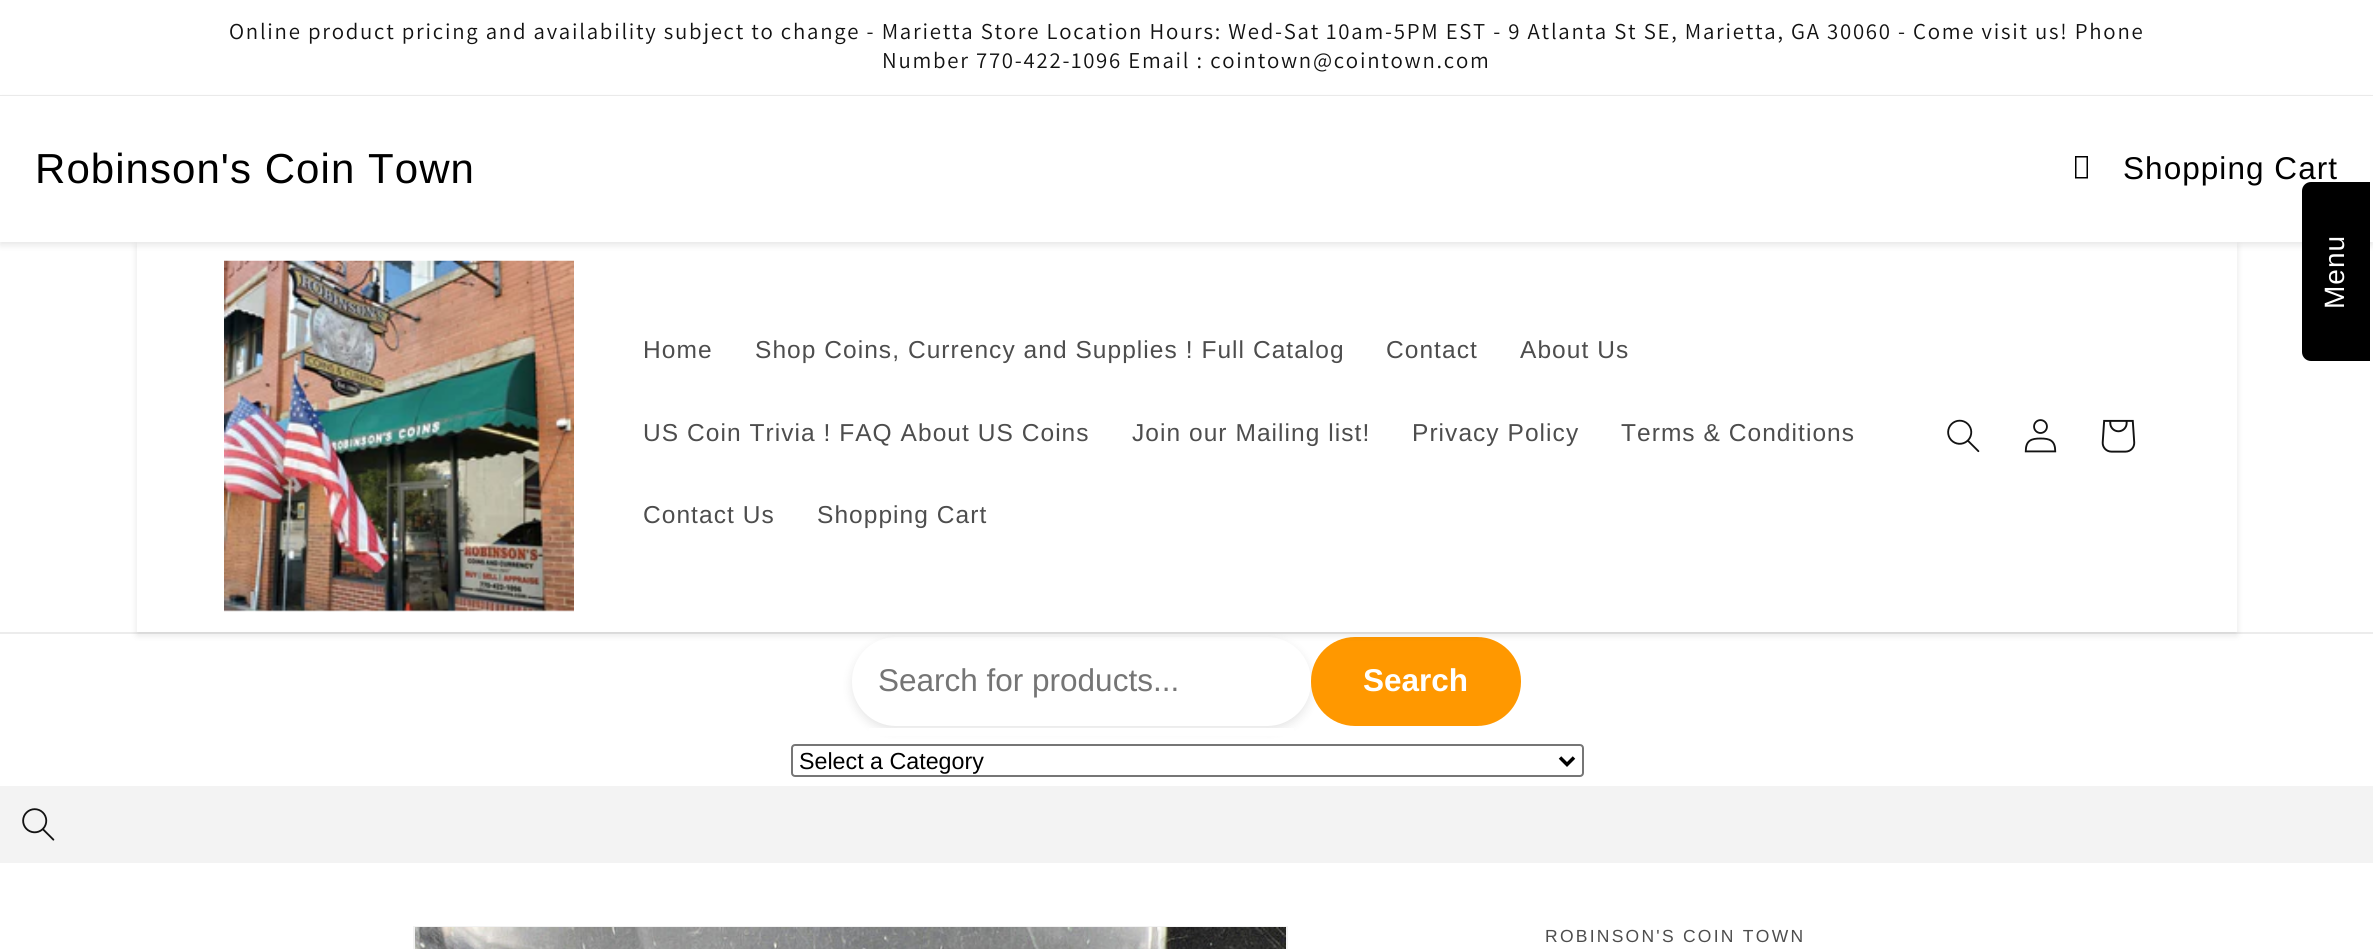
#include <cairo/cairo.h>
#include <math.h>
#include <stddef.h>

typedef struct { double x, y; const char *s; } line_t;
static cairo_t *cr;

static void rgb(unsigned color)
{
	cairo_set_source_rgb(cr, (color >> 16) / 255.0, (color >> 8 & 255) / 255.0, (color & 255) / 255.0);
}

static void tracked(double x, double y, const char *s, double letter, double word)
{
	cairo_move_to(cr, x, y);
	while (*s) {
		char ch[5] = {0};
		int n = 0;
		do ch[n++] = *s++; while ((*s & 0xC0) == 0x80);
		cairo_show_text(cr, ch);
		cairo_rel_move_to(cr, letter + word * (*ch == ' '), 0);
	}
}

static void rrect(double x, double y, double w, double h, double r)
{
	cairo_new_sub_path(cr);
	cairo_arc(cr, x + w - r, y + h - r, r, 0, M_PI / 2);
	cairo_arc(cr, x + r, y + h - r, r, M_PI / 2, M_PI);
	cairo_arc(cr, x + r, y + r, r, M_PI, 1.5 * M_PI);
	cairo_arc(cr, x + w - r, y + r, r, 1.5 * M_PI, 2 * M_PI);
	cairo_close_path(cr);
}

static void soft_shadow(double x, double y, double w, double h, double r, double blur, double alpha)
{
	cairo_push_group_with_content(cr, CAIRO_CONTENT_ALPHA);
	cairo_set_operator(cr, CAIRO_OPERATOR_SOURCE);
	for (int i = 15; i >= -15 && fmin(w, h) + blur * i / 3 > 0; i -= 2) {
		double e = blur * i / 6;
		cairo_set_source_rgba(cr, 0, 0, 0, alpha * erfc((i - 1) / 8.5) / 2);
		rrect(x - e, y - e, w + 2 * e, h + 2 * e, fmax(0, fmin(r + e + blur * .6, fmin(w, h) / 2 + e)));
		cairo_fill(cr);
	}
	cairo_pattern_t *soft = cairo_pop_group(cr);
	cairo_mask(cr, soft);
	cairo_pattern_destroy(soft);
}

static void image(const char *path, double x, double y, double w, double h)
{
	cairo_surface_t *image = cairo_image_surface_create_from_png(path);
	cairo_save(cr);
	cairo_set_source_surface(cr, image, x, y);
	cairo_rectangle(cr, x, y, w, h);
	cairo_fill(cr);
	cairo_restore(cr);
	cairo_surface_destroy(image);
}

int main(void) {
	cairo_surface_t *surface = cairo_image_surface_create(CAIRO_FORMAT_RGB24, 2373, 949);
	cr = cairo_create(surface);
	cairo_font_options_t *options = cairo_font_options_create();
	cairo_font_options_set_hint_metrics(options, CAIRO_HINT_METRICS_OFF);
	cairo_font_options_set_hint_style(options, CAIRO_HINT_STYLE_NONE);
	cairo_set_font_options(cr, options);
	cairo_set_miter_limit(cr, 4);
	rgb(0xffffff);
	cairo_paint(cr);
	rgb(0xececec);
	cairo_rectangle(cr, 0, 95, 2373, 1);
	cairo_fill(cr);
	rgb(0x000000);
	soft_shadow(852, 641, 459, 89, 44, 5, 0.1);
	rgb(0xececec);
	cairo_rectangle(cr, 0, 632, 2373, 2);
	cairo_fill(cr);
	rgb(0xffffff);
	rrect(852, 637, 459, 89, 44);
	cairo_fill(cr);
	rgb(0xff9800);
	rrect(1311, 637, 210, 89, 44);
	cairo_fill(cr);
	rgb(0x000000);
	soft_shadow(137, 245, 2100, 390, 0, 3.5, 0.1);
	rgb(0xffffff);
	cairo_rectangle(cr, 137, 242, 2100, 390);
	cairo_fill(cr);
	rgb(0x000000);
	soft_shadow(0, 100, 2373, 145, 0, 3.5, 0.1);
	rgb(0xffffff);
	cairo_rectangle(cr, 0, 96, 2373, 146);
	cairo_fill(cr);
	rgb(0x000000);
	cairo_new_path(cr);
	cairo_move_to(cr, 2075, 178.5);
	cairo_line_to(cr, 2075, 156);
	cairo_line_to(cr, 2088, 156);
	cairo_line_to(cr, 2088, 178.5);
	cairo_close_path(cr);
	cairo_move_to(cr, 2076.5, 177);
	cairo_line_to(cr, 2086.5, 177);
	cairo_line_to(cr, 2086.5, 157.5);
	cairo_line_to(cr, 2076.5, 157.5);
	cairo_close_path(cr);
	cairo_fill(cr);
	cairo_new_path(cr);
	cairo_move_to(cr, 2302, 352);
	cairo_line_to(cr, 2302, 191);
	cairo_curve_to(cr, 2302, 186, 2306, 182, 2311, 182);
	cairo_line_to(cr, 2370, 182);
	cairo_line_to(cr, 2370, 361);
	cairo_line_to(cr, 2311, 361);
	cairo_curve_to(cr, 2306, 361, 2302, 357, 2302, 352);
	cairo_close_path(cr);
	cairo_fill(cr);
	image("img/1.png", 224, 260, 350, 352);
	image("img/2.png", 1947, 419, 33, 34);
	image("img/3.png", 2024, 419, 33, 34);
	image("img/4.png", 2101, 419, 35, 34);
	rgb(0xffffff);
	cairo_rectangle(cr, 869, 728, 425, 8);
	cairo_fill(cr);
	rrect(792, 745, 791, 31, 3);
	rgb(0x767676);
	cairo_stroke(cr);
	cairo_new_path(cr);
	cairo_move_to(cr, 1560, 757.5);
	cairo_line_to(cr, 1567, 764.5);
	cairo_line_to(cr, 1574, 757.5);
	rgb(0x000000);
	cairo_set_line_width(cr, 3.5);
	cairo_stroke(cr);
	rgb(0xf3f3f3);
	cairo_rectangle(cr, 0, 786, 2373, 77);
	cairo_fill(cr);
	image("img/5.png", 22, 808, 33, 33);
	cairo_rectangle(cr, 414, 927, 873, 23);
	cairo_set_line_width(cr, 2);
	cairo_stroke(cr);
	image("img/6.png", 415, 927, 871, 22);
	cairo_select_font_face(cr, "Assistant", CAIRO_FONT_SLANT_NORMAL, CAIRO_FONT_WEIGHT_NORMAL);
	cairo_set_font_size(cr, 22.75);
	rgb(0x121212);
	tracked(229, 39, "Online product pricing and availability subject to change - Marietta Store Location Hours: Wed-Sat 10am-5PM EST - 9 Atlanta St SE, Marietta, GA 30060 - Come visit us! Phone", 1.75, 0);
	tracked(882, 68, "Number 770-422-1096 Email : cointown@cointown.com", 1.75, 0);
	cairo_select_font_face(cr, "Liberation Sans", CAIRO_FONT_SLANT_NORMAL, CAIRO_FONT_WEIGHT_NORMAL);
	cairo_set_font_size(cr, 42);
	rgb(0x000000);
	tracked(35, 183, "Robinson's Coin Town", 1.05, 0);
	cairo_set_font_size(cr, 31.5);
	tracked(2123, 179, "Shopping Cart", 1.05, 0);
	cairo_set_font_size(cr, 28);
	rgb(0xffffff);
	cairo_save(cr);
	cairo_translate(cr, 2344, 309);
	cairo_rotate(cr, -90 * M_PI / 180);
	tracked(0, 0, "Menu", 1.05, 0);
	cairo_restore(cr);
	cairo_set_font_size(cr, 24.5);
	rgb(0x4d4d4d);
	{
		static const line_t items[] = {
			{643, 358, "Home"},
			{755, 358, "Shop Coins, Currency and Supplies ! Full Catalog"},
			{1386, 358, "Contact"},
			{1520, 358, "About Us"},
			{643, 441, "US Coin Trivia ! FAQ About US Coins"},
			{1132, 441, "Join our Mailing list!"},
			{1412, 441, "Privacy Policy"},
			{1621, 441, "Terms & Conditions"},
			{643, 523, "Contact Us"},
			{817, 523, "Shopping Cart"},
		};
		for (size_t i = 0; i < sizeof items / sizeof *items; i++) {
			tracked(items[i].x, items[i].y, items[i].s, 1.05, 0);
		}
	}
	cairo_set_font_size(cr, 31.5);
	rgb(0x757575);
	cairo_move_to(cr, 878, 691);
	cairo_show_text(cr, "Search for products...");
	cairo_select_font_face(cr, "Liberation Sans", CAIRO_FONT_SLANT_NORMAL, CAIRO_FONT_WEIGHT_BOLD);
	rgb(0xffffff);
	cairo_move_to(cr, 1363, 691);
	cairo_show_text(cr, "Search");
	cairo_select_font_face(cr, "Liberation Sans", CAIRO_FONT_SLANT_NORMAL, CAIRO_FONT_WEIGHT_NORMAL);
	cairo_set_font_size(cr, 23.25);
	rgb(0x000000);
	cairo_move_to(cr, 799, 769);
	cairo_show_text(cr, "Select a Category");
	cairo_set_font_size(cr, 17.5);
	rgb(0x4d4d4d);
	tracked(1545, 942, "ROBINSON'S COIN TOWN", 2.25, 0);
	cairo_surface_write_to_png(surface, "page.png");
	cairo_font_options_destroy(options);
	cairo_destroy(cr);
	cairo_surface_destroy(surface);
	return 0;
}
